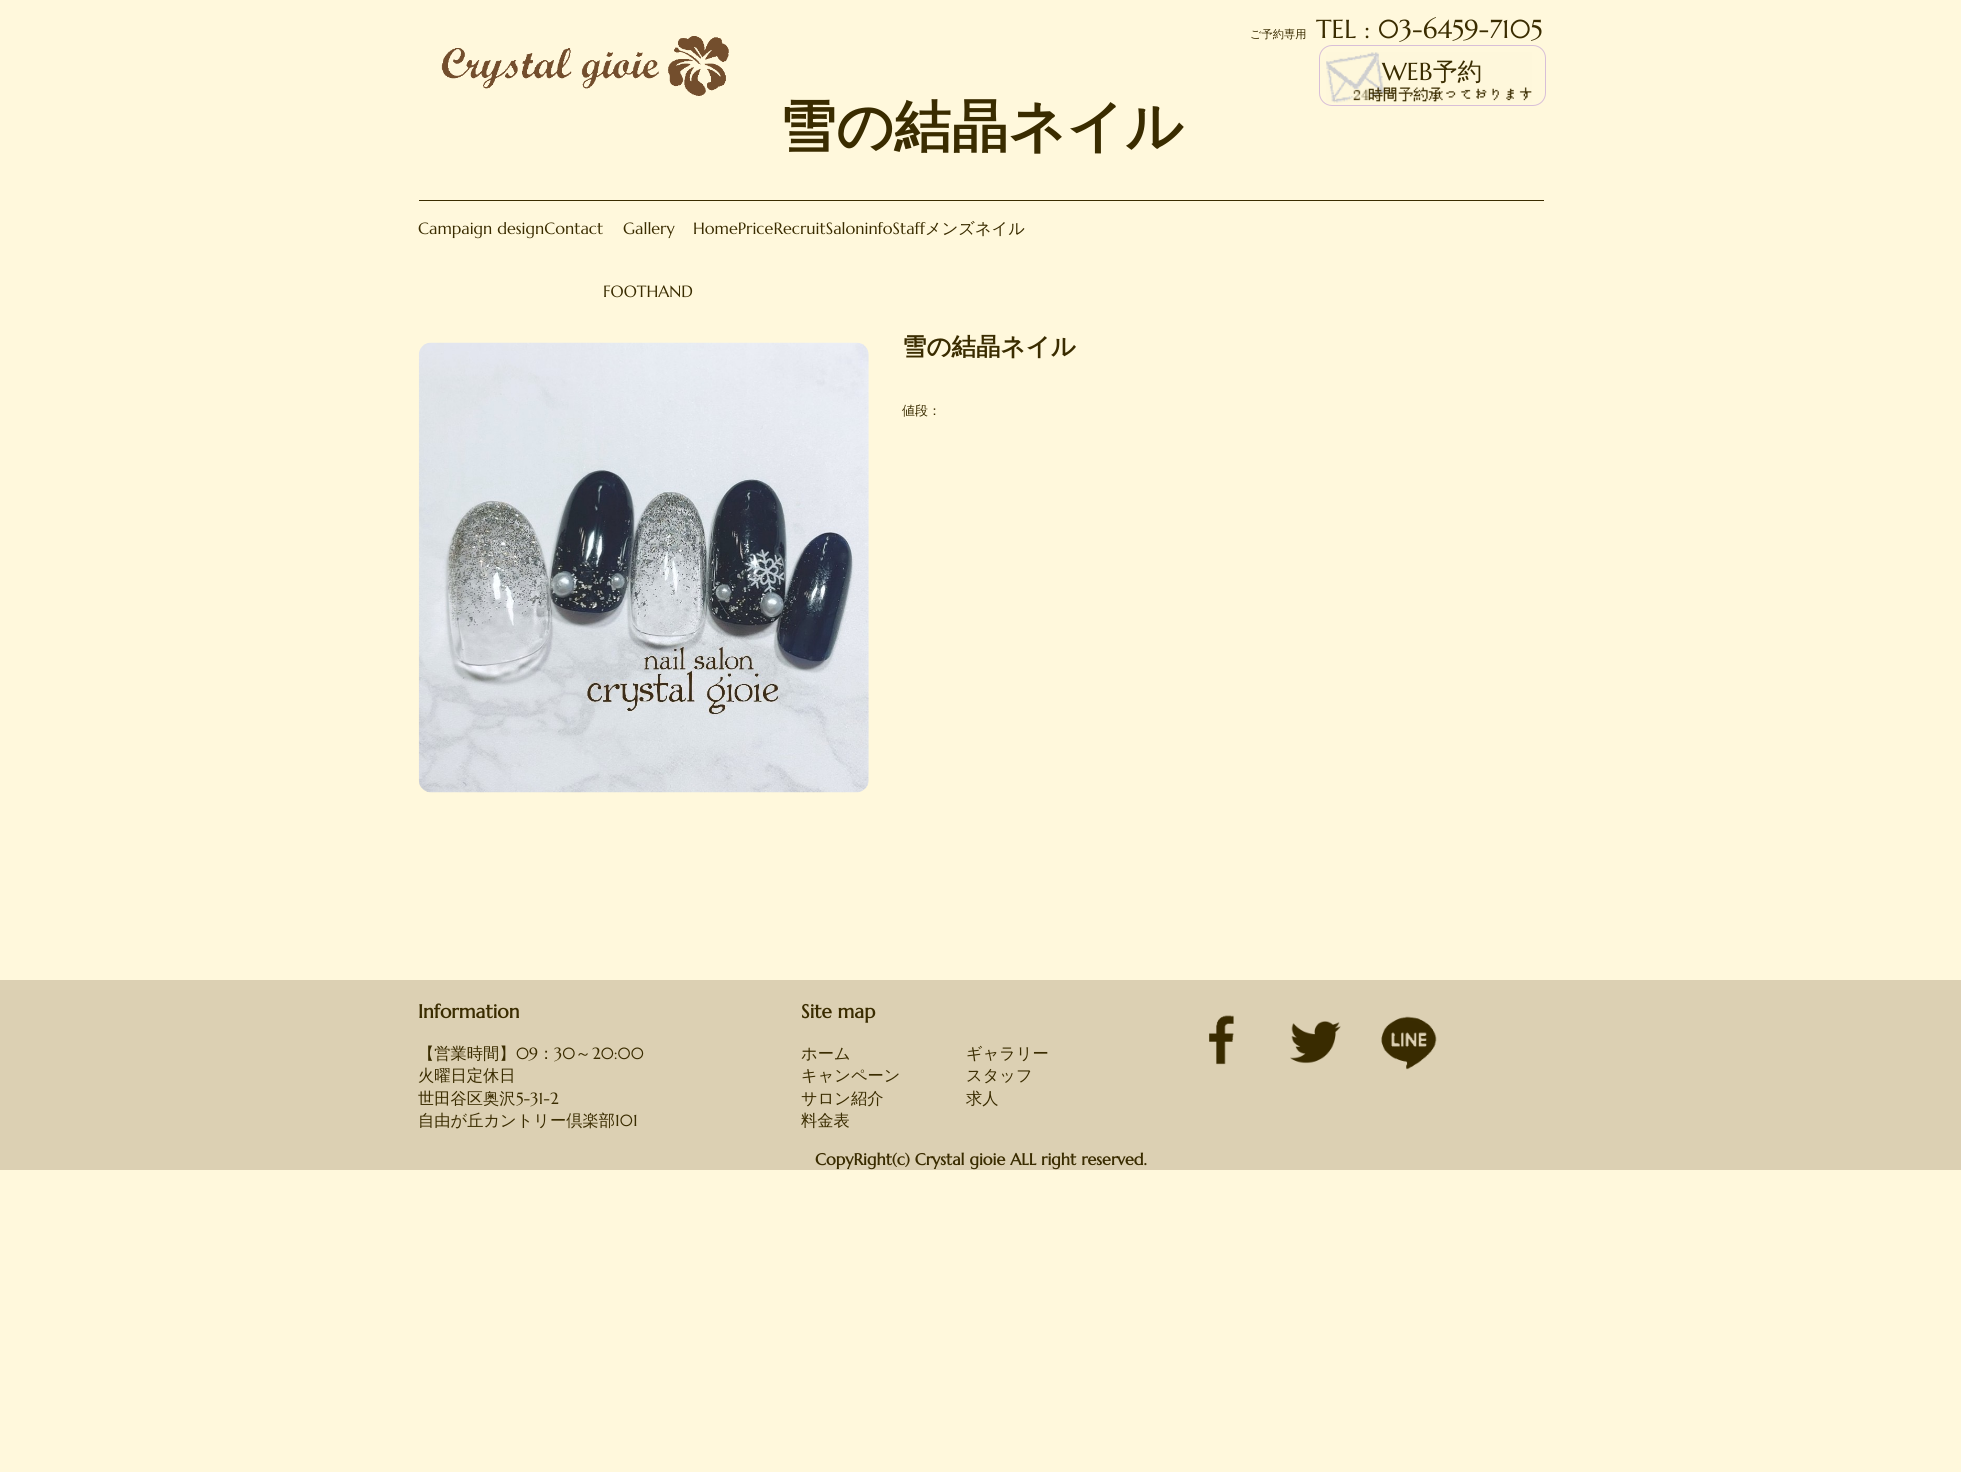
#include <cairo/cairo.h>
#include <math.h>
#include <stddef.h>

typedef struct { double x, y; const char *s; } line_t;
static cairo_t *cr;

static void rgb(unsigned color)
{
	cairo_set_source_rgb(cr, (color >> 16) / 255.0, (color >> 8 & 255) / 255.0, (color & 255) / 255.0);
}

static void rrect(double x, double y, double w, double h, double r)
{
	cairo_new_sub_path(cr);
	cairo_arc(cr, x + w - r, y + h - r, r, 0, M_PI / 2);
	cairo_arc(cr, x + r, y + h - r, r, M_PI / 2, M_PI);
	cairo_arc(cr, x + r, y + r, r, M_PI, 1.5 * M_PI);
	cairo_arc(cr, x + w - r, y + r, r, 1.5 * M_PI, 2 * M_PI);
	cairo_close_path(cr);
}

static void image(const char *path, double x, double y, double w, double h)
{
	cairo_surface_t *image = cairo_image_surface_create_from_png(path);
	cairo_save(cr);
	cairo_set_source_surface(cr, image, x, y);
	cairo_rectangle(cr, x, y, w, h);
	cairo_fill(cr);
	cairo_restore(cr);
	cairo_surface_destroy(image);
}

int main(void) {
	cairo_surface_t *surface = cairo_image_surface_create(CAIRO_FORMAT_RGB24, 1961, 1472);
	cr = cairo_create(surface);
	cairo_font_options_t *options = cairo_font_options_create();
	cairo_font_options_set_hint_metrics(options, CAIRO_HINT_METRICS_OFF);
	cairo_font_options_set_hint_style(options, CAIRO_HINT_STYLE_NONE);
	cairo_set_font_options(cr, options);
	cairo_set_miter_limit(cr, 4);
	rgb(0xfff8dc);
	cairo_paint(cr);
	image("img/1.png", 441, 36, 288, 60);
	image("img/2.png", 1326, 52, 206, 51);
	rrect(1319.5, 45.5, 226, 60, 12.5);
	rgb(0xd8bfd8);
	cairo_set_line_width(cr, 1);
	cairo_stroke(cr);
	rgb(0x3a2c00);
	cairo_rectangle(cr, 419, 200, 1125, 1);
	cairo_fill(cr);
	image("img/3.png", 418, 342, 451, 451);
	rgb(0xdcd0b3);
	cairo_rectangle(cr, 0, 980, 1961, 190);
	cairo_fill(cr);
	image("img/4.png", 1209, 1015, 25, 50);
	image("img/5.png", 1290, 1021, 51, 43);
	image("img/6.png", 1381, 1016, 56, 54);
	cairo_select_font_face(cr, "WenQuanYi Zen Hei Medium", CAIRO_FONT_SLANT_NORMAL, CAIRO_FONT_WEIGHT_NORMAL);
	cairo_set_font_size(cr, 11.25);
	rgb(0x3a2c00);
	cairo_move_to(cr, 1250, 38);
	cairo_show_text(cr, "ご予約専用");
	cairo_select_font_face(cr, "Marcellus", CAIRO_FONT_SLANT_NORMAL, CAIRO_FONT_WEIGHT_NORMAL);
	cairo_set_font_size(cr, 26);
	cairo_move_to(cr, 1316, 38);
	cairo_show_text(cr, "TEL : 03-6459-7105");
	cairo_set_font_size(cr, 24.5);
	cairo_move_to(cr, 1382, 80);
	cairo_show_text(cr, "WEB");
	cairo_select_font_face(cr, "WenQuanYi Zen Hei Medium", CAIRO_FONT_SLANT_NORMAL, CAIRO_FONT_WEIGHT_NORMAL);
	cairo_move_to(cr, 1433, 80);
	cairo_show_text(cr, "予約");
	cairo_select_font_face(cr, "WenQuanYi Zen Hei", CAIRO_FONT_SLANT_NORMAL, CAIRO_FONT_WEIGHT_BOLD);
	cairo_set_font_size(cr, 57);
	cairo_move_to(cr, 779, 146);
	cairo_show_text(cr, "雪の結晶ネイル");
	cairo_select_font_face(cr, "Marcellus", CAIRO_FONT_SLANT_NORMAL, CAIRO_FONT_WEIGHT_NORMAL);
	cairo_set_font_size(cr, 16.25);
	{
		static const line_t items[] = {
			{418, 234, "Campaign designContact"},
			{623, 234, "Gallery"},
			{603, 297, "FOOTHAND"},
			{693, 234, "HomePriceRecruitSaloninfoStaff"},
		};
		for (size_t i = 0; i < sizeof items / sizeof *items; i++) {
			cairo_move_to(cr, items[i].x, items[i].y);
			cairo_show_text(cr, items[i].s);
		}
	}
	cairo_select_font_face(cr, "WenQuanYi Zen Hei Medium", CAIRO_FONT_SLANT_NORMAL, CAIRO_FONT_WEIGHT_NORMAL);
	cairo_move_to(cr, 925, 234);
	cairo_show_text(cr, "メンズネイル");
	cairo_select_font_face(cr, "WenQuanYi Zen Hei", CAIRO_FONT_SLANT_NORMAL, CAIRO_FONT_WEIGHT_BOLD);
	cairo_set_font_size(cr, 24.5);
	cairo_move_to(cr, 902, 355);
	cairo_show_text(cr, "雪の結晶ネイル");
	cairo_select_font_face(cr, "WenQuanYi Zen Hei Medium", CAIRO_FONT_SLANT_NORMAL, CAIRO_FONT_WEIGHT_NORMAL);
	cairo_set_font_size(cr, 13);
	cairo_move_to(cr, 902, 415);
	cairo_show_text(cr, "値段：");
	cairo_select_font_face(cr, "Marcellus", CAIRO_FONT_SLANT_NORMAL, CAIRO_FONT_WEIGHT_BOLD);
	cairo_set_font_size(cr, 19);
	cairo_move_to(cr, 418, 1018);
	cairo_show_text(cr, "Information");
	cairo_select_font_face(cr, "WenQuanYi Zen Hei Medium", CAIRO_FONT_SLANT_NORMAL, CAIRO_FONT_WEIGHT_NORMAL);
	cairo_set_font_size(cr, 16.25);
	cairo_move_to(cr, 418, 1059);
	cairo_show_text(cr, "【営業時間】");
	cairo_select_font_face(cr, "Marcellus", CAIRO_FONT_SLANT_NORMAL, CAIRO_FONT_WEIGHT_NORMAL);
	cairo_move_to(cr, 516, 1059);
	cairo_show_text(cr, "09");
	cairo_select_font_face(cr, "WenQuanYi Zen Hei Medium", CAIRO_FONT_SLANT_NORMAL, CAIRO_FONT_WEIGHT_NORMAL);
	cairo_move_to(cr, 538, 1059);
	cairo_show_text(cr, "：");
	cairo_select_font_face(cr, "Marcellus", CAIRO_FONT_SLANT_NORMAL, CAIRO_FONT_WEIGHT_NORMAL);
	cairo_move_to(cr, 554, 1059);
	cairo_show_text(cr, "30");
	cairo_select_font_face(cr, "WenQuanYi Zen Hei Medium", CAIRO_FONT_SLANT_NORMAL, CAIRO_FONT_WEIGHT_NORMAL);
	cairo_move_to(cr, 575, 1059);
	cairo_show_text(cr, "～");
	cairo_select_font_face(cr, "Marcellus", CAIRO_FONT_SLANT_NORMAL, CAIRO_FONT_WEIGHT_NORMAL);
	cairo_move_to(cr, 592, 1059);
	cairo_show_text(cr, "20:00");
	cairo_select_font_face(cr, "WenQuanYi Zen Hei Medium", CAIRO_FONT_SLANT_NORMAL, CAIRO_FONT_WEIGHT_NORMAL);
	cairo_move_to(cr, 418, 1081);
	cairo_show_text(cr, "火曜日定休日");
	cairo_move_to(cr, 418, 1104);
	cairo_show_text(cr, "世田谷区奥沢");
	cairo_select_font_face(cr, "Marcellus", CAIRO_FONT_SLANT_NORMAL, CAIRO_FONT_WEIGHT_NORMAL);
	cairo_move_to(cr, 516, 1104);
	cairo_show_text(cr, "5-31-2");
	cairo_select_font_face(cr, "WenQuanYi Zen Hei Medium", CAIRO_FONT_SLANT_NORMAL, CAIRO_FONT_WEIGHT_NORMAL);
	cairo_move_to(cr, 418, 1126);
	cairo_show_text(cr, "自由が丘カントリー倶楽部");
	cairo_select_font_face(cr, "Marcellus", CAIRO_FONT_SLANT_NORMAL, CAIRO_FONT_WEIGHT_NORMAL);
	cairo_move_to(cr, 615, 1126);
	cairo_show_text(cr, "101");
	cairo_select_font_face(cr, "Marcellus", CAIRO_FONT_SLANT_NORMAL, CAIRO_FONT_WEIGHT_BOLD);
	cairo_set_font_size(cr, 19);
	cairo_move_to(cr, 801, 1018);
	cairo_show_text(cr, "Site map");
	cairo_select_font_face(cr, "WenQuanYi Zen Hei Medium", CAIRO_FONT_SLANT_NORMAL, CAIRO_FONT_WEIGHT_NORMAL);
	cairo_set_font_size(cr, 16.25);
	{
		static const line_t items[] = {
			{801, 1059, "ホーム"},
			{966, 1059, "ギャラリー"},
			{801, 1081, "キャンペーン"},
			{966, 1081, "スタッフ"},
			{801, 1104, "サロン紹介"},
			{966, 1104, "求人"},
			{801, 1126, "料金表"},
		};
		for (size_t i = 0; i < sizeof items / sizeof *items; i++) {
			cairo_move_to(cr, items[i].x, items[i].y);
			cairo_show_text(cr, items[i].s);
		}
	}
	cairo_select_font_face(cr, "Marcellus", CAIRO_FONT_SLANT_NORMAL, CAIRO_FONT_WEIGHT_BOLD);
	cairo_move_to(cr, 815, 1165);
	cairo_show_text(cr, "CopyRight(c) Crystal gioie ALL right reserved.");
	cairo_surface_write_to_png(surface, "page.png");
	cairo_font_options_destroy(options);
	cairo_destroy(cr);
	cairo_surface_destroy(surface);
	return 0;
}
